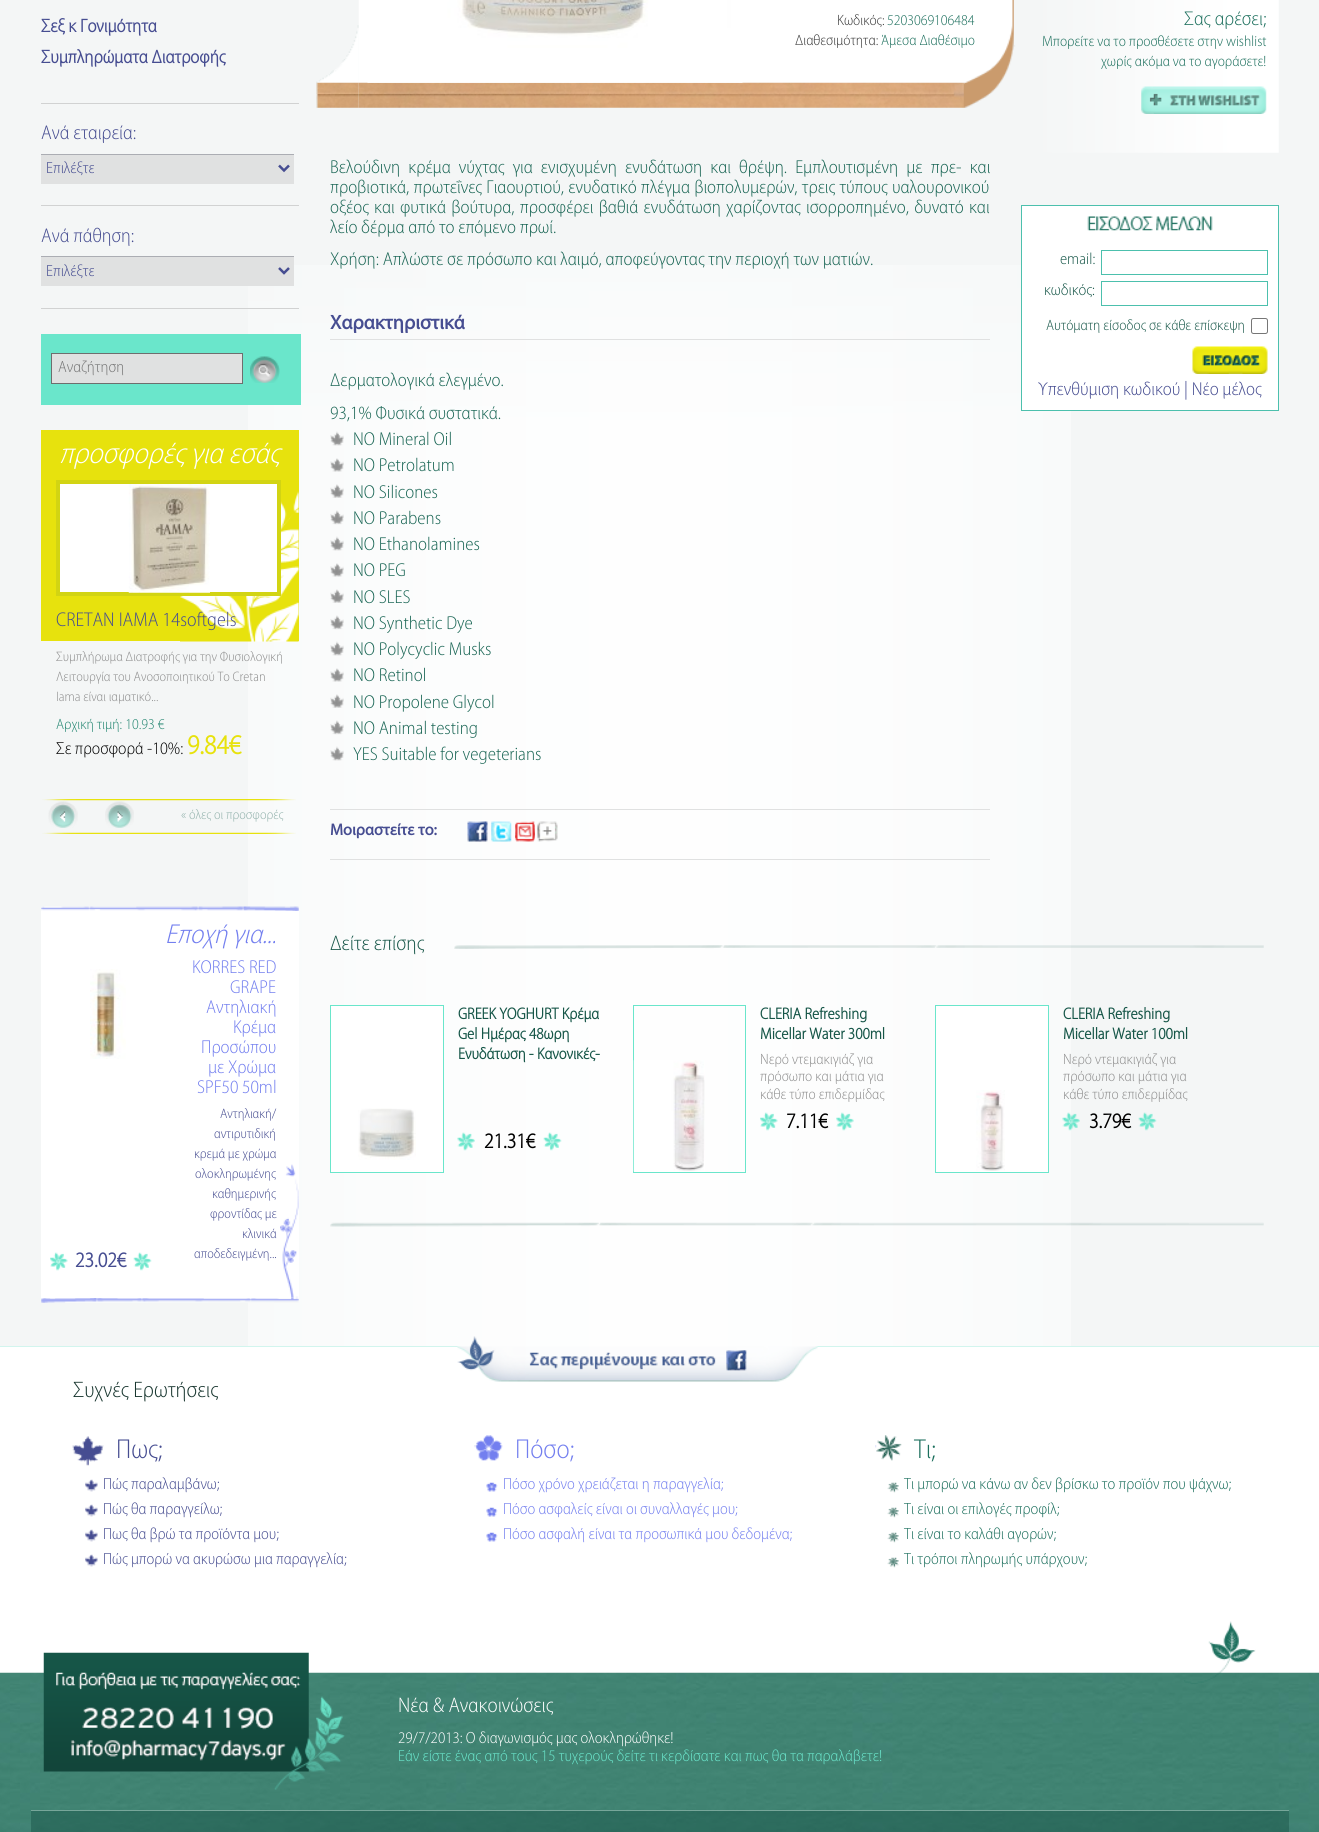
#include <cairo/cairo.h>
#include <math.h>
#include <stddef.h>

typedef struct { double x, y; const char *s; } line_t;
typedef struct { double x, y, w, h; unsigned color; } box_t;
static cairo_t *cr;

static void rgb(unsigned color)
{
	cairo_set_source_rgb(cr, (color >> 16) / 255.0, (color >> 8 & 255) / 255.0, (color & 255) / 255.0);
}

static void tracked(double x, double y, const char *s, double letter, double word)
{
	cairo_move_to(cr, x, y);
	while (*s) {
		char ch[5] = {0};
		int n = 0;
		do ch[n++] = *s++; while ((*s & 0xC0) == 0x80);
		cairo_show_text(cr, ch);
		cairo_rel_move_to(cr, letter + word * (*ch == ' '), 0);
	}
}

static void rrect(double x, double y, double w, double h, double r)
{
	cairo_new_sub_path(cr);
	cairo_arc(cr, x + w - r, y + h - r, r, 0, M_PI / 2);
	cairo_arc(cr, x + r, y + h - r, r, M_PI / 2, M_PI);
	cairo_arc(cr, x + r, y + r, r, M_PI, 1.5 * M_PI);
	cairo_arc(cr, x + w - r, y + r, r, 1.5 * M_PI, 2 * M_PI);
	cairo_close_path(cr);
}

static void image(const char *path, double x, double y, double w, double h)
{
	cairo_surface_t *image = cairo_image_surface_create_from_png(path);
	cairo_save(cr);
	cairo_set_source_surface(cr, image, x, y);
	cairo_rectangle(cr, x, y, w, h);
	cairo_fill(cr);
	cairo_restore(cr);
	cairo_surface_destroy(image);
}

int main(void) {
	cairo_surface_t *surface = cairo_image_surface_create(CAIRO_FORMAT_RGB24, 1319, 1832);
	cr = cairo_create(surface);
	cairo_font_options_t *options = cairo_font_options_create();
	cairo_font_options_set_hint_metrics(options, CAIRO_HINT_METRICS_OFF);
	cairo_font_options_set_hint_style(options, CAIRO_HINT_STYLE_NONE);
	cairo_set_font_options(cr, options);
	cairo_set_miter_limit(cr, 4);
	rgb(0xf4f6f6);
	cairo_paint(cr);
	image("img/1.png", 1014, 0, 265, 153);
	image("img/2.png", 1141, 86, 126, 28);
	image("img/40.png", 248, 265, 823, 1081);
	rgb(0xffffff);
	cairo_rectangle(cr, 1021.5, 205.5, 257, 205);
	cairo_fill_preserve(cr);
	rgb(0x4cc0ad);
	cairo_set_line_width(cr, 1);
	cairo_stroke(cr);
	image("img/3.png", 1087, 216, 126, 15);
	cairo_rectangle(cr, 1101.5, 250.5, 166, 24);
	cairo_stroke(cr);
	cairo_rectangle(cr, 1101.5, 281.5, 166, 24);
	cairo_stroke(cr);
	rrect(1251.5, 318.5, 16, 15, 2);
	rgb(0x767676);
	cairo_stroke(cr);
	image("img/4.png", 1192, 346, 76, 28);
	{
		static const box_t items[] = {
			{41, 103, 258, 1, 0xd1d2d2},
			{41, 155, 253, 29, 0xe0e1e1},
			{41, 154, 253, 1, 0xabadb3},
		};
		for (size_t i = 0; i < sizeof items / sizeof *items; i++) {
			rgb(items[i].color);
			cairo_rectangle(cr, items[i].x, items[i].y, items[i].w, items[i].h);
			cairo_fill(cr);
		}
	}
	cairo_new_path(cr);
	cairo_move_to(cr, 279, 165.5);
	cairo_line_to(cr, 284, 170.5);
	cairo_line_to(cr, 289, 165.5);
	rgb(0x464d91);
	cairo_set_line_width(cr, 2.5);
	cairo_stroke(cr);
	{
		static const box_t items[] = {
			{41, 205, 258, 1, 0xd1d2d2},
			{41, 308, 258, 1, 0xd1d2d2},
			{41, 257, 253, 29, 0xe0e1e1},
			{41, 256, 253, 1, 0xabadb3},
		};
		for (size_t i = 0; i < sizeof items / sizeof *items; i++) {
			rgb(items[i].color);
			cairo_rectangle(cr, items[i].x, items[i].y, items[i].w, items[i].h);
			cairo_fill(cr);
		}
	}
	cairo_new_path(cr);
	cairo_move_to(cr, 279, 268);
	cairo_line_to(cr, 284, 273);
	cairo_line_to(cr, 289, 268);
	rgb(0x464d91);
	cairo_stroke(cr);
	rgb(0x6ae6cb);
	cairo_rectangle(cr, 41, 334, 260, 71);
	cairo_fill(cr);
	rgb(0xe0e1e1);
	cairo_rectangle(cr, 51.5, 353.5, 191, 30);
	cairo_fill_preserve(cr);
	rgb(0x6e6e6e);
	cairo_set_line_width(cr, 1);
	cairo_stroke(cr);
	image("img/5.png", 250, 356, 30, 27);
	rgb(0xe7e20d);
	cairo_rectangle(cr, 41, 430, 258, 211);
	cairo_fill(cr);
	image("img/6.png", 180, 481, 119, 161);
	rgb(0xffffff);
	cairo_rectangle(cr, 58, 482, 221, 112);
	cairo_fill_preserve(cr);
	rgb(0xd2d413);
	cairo_set_line_width(cr, 4);
	cairo_stroke(cr);
	image("img/7.png", 128, 484, 82, 109);
	image("img/8.png", 48, 801, 30, 27);
	image("img/9.png", 105, 801, 29, 27);
	image("img/10.png", 42, 799, 254, 2);
	image("img/11.png", 42, 832, 254, 2);
	image("img/12.png", 41, 906, 258, 5);
	rgb(0xffffff);
	cairo_rectangle(cr, 41, 911, 258, 387);
	cairo_fill(cr);
	image("img/13.png", 90, 969, 36, 90);
	image("img/14.png", 50, 1252, 18, 19);
	image("img/15.png", 133, 1252, 19, 19);
	image("img/16.png", 280, 1164, 19, 134);
	image("img/17.png", 41, 1298, 258, 5);
	image("img/18.png", 316, 25, 43, 83);
	image("img/19.png", 358, 0, 656, 108);
	image("img/20.png", 367, 0, 376, 83);
	rgb(0xe0e1e1);
	cairo_rectangle(cr, 330, 339, 660, 1);
	cairo_fill(cr);
	image("img/21.png", 330, 431, 14, 15);
	image("img/22.png", 330, 458, 14, 14);
	image("img/23.png", 330, 484, 14, 14);
	image("img/24.png", 330, 510, 14, 15);
	image("img/21.png", 330, 536, 14, 15);
	image("img/22.png", 330, 563, 14, 14);
	image("img/23.png", 330, 589, 14, 14);
	image("img/24.png", 330, 615, 14, 15);
	image("img/21.png", 330, 641, 14, 15);
	image("img/22.png", 330, 668, 14, 14);
	image("img/23.png", 330, 694, 14, 14);
	image("img/24.png", 330, 720, 14, 15);
	image("img/21.png", 330, 746, 14, 15);
	cairo_rectangle(cr, 330, 809, 660, 1);
	cairo_fill(cr);
	image("img/25.png", 467, 821, 21, 21);
	image("img/26.png", 491, 821, 21, 21);
	image("img/27.png", 515, 821, 20, 21);
	image("img/28.png", 537, 821, 21, 21);
	cairo_rectangle(cr, 330, 859, 660, 1);
	cairo_fill(cr);
	image("img/29.png", 454, 945, 810, 4);
	rgb(0xffffff);
	cairo_rectangle(cr, 330.5, 1005.5, 113, 167);
	cairo_fill_preserve(cr);
	rgb(0x6ae6cb);
	cairo_set_line_width(cr, 1);
	cairo_stroke(cr);
	image("img/30.png", 358, 1108, 58, 52);
	image("img/31.png", 457, 1132, 18, 19);
	image("img/32.png", 543, 1132, 19, 19);
	cairo_rectangle(cr, 633.5, 1005.5, 112, 167);
	cairo_stroke(cr);
	image("img/33.png", 633, 1060, 72, 112);
	image("img/34.png", 760, 1112, 18, 19);
	image("img/35.png", 836, 1112, 18, 19);
	rgb(0xffffff);
	cairo_rectangle(cr, 935.5, 1005.5, 113, 167);
	cairo_fill_preserve(cr);
	rgb(0x6ae6cb);
	cairo_stroke(cr);
	image("img/36.png", 976, 1090, 29, 81);
	image("img/37.png", 1062, 1112, 18, 19);
	image("img/38.png", 1138, 1112, 19, 19);
	image("img/39.png", 330, 1222, 934, 5);
	rgb(0xffffff);
	cairo_rectangle(cr, 0, 1347, 1319, 326);
	cairo_fill(cr);
	rgb(0xd2f5ee);
	cairo_rectangle(cr, 0, 1346, 1319, 1);
	cairo_fill(cr);
	image("img/41.png", 457, 1336, 361, 46);
	image("img/42.png", 72, 1436, 32, 30);
	image("img/43.png", 85, 1479, 13, 13);
	image("img/43.png", 85, 1504, 13, 13);
	image("img/43.png", 85, 1529, 13, 13);
	image("img/43.png", 85, 1554, 13, 13);
	image("img/44.png", 474, 1435, 29, 26);
	image("img/45.png", 486, 1482, 12, 10);
	image("img/46.png", 486, 1507, 12, 10);
	image("img/45.png", 486, 1532, 12, 10);
	image("img/47.png", 875, 1435, 27, 26);
	image("img/48.png", 887, 1482, 12, 11);
	image("img/49.png", 887, 1507, 12, 11);
	image("img/48.png", 887, 1532, 12, 11);
	image("img/48.png", 887, 1557, 12, 11);
	image("img/50.png", 0, 1672, 1319, 160);
	image("img/51.png", 43, 1652, 302, 138);
	image("img/52.png", 1184, 1621, 72, 63);
	cairo_set_source_rgba(cr, 0.078, 0.302, 0.255, 0.4);
	cairo_rectangle(cr, 31, 1811, 1258, 21);
	cairo_fill(cr);
	rgb(0x77a69a);
	cairo_rectangle(cr, 31, 1810, 1258, 1);
	cairo_fill(cr);
	cairo_select_font_face(cr, "Myriad Light", CAIRO_FONT_SLANT_NORMAL, CAIRO_FONT_WEIGHT_NORMAL);
	cairo_set_font_size(cr, 20);
	rgb(0x1c6f5d);
	cairo_move_to(cr, 1184, 25);
	cairo_show_text(cr, "Σας αρέσει;");
	cairo_set_font_size(cr, 15);
	cairo_move_to(cr, 1042, 46);
	cairo_show_text(cr, "Μπορείτε να το προσθέσετε στην wishlist");
	cairo_move_to(cr, 1101, 66);
	cairo_show_text(cr, "χωρίς ακόμα να το αγοράσετε!");
	cairo_set_font_size(cr, 16.25);
	rgb(0x165648);
	cairo_move_to(cr, 1060, 264);
	cairo_show_text(cr, "email:");
	cairo_move_to(cr, 1044, 295);
	cairo_show_text(cr, "κωδικός:");
	cairo_set_font_size(cr, 15);
	cairo_move_to(cr, 1046, 330);
	cairo_show_text(cr, "Αυτόματη είσοδος σε κάθε επίσκεψη");
	cairo_set_font_size(cr, 18.75);
	rgb(0x464d91);
	cairo_move_to(cr, 1038, 395);
	cairo_show_text(cr, "Υπενθύμιση κωδικού | Nέο μέλος");
	cairo_select_font_face(cr, "Myriad", CAIRO_FONT_SLANT_NORMAL, CAIRO_FONT_WEIGHT_BOLD);
	cairo_move_to(cr, 41, 32);
	cairo_show_text(cr, "Σεξ κ Γονιμότητα");
	cairo_move_to(cr, 41, 63);
	cairo_show_text(cr, "Συμπληρώματα Διατροφής");
	cairo_select_font_face(cr, "Myriad Light", CAIRO_FONT_SLANT_NORMAL, CAIRO_FONT_WEIGHT_NORMAL);
	cairo_set_font_size(cr, 20);
	cairo_move_to(cr, 41, 139);
	cairo_show_text(cr, "Ανά εταιρεία:");
	cairo_set_font_size(cr, 16.25);
	cairo_move_to(cr, 46, 173);
	cairo_show_text(cr, "Επιλέξτε");
	cairo_set_font_size(cr, 20);
	cairo_move_to(cr, 41, 242);
	cairo_show_text(cr, "Ανά πάθηση:");
	cairo_set_font_size(cr, 16.25);
	cairo_move_to(cr, 46, 276);
	cairo_show_text(cr, "Επιλέξτε");
	rgb(0x757575);
	cairo_move_to(cr, 58, 372);
	cairo_show_text(cr, "Αναζήτηση");
	cairo_select_font_face(cr, "Myriad Light", CAIRO_FONT_SLANT_ITALIC, CAIRO_FONT_WEIGHT_NORMAL);
	cairo_set_font_size(cr, 30);
	rgb(0xffffff);
	cairo_move_to(cr, 59, 463);
	cairo_show_text(cr, "προσφορές για εσάς");
	cairo_select_font_face(cr, "Myriad Light", CAIRO_FONT_SLANT_NORMAL, CAIRO_FONT_WEIGHT_NORMAL);
	cairo_set_font_size(cr, 20);
	rgb(0x464d91);
	cairo_move_to(cr, 56, 626);
	cairo_show_text(cr, "CRETAN IAMA 14softgels");
	cairo_set_font_size(cr, 13.75);
	rgb(0x8d8d8d);
	{
		static const line_t items[] = {
			{56, 661, "Συμπλήρωμα Διατροφής για την Φυσιολογική"},
			{56, 681, "Λειτουργία του Ανοσοποιητικού Το Cretan"},
			{56, 701, "Iama είναι ιαματικό..."},
		};
		for (size_t i = 0; i < sizeof items / sizeof *items; i++) {
			cairo_move_to(cr, items[i].x, items[i].y);
			cairo_show_text(cr, items[i].s);
		}
	}
	cairo_set_font_size(cr, 15);
	rgb(0x228570);
	cairo_move_to(cr, 56, 729);
	cairo_show_text(cr, "Αρχική τιμή: 10.93 €");
	cairo_set_font_size(cr, 17.5);
	rgb(0x000000);
	cairo_move_to(cr, 56, 754);
	cairo_show_text(cr, "Σε προσφορά -10%:");
	cairo_select_font_face(cr, "Myriad", CAIRO_FONT_SLANT_NORMAL, CAIRO_FONT_WEIGHT_BOLD);
	cairo_set_font_size(cr, 27.5);
	rgb(0xe7e20d);
	cairo_move_to(cr, 187, 754);
	cairo_show_text(cr, "9.84€");
	cairo_select_font_face(cr, "Myriad Light", CAIRO_FONT_SLANT_NORMAL, CAIRO_FONT_WEIGHT_NORMAL);
	cairo_set_font_size(cr, 13.75);
	rgb(0x91b1ab);
	cairo_move_to(cr, 181, 819);
	cairo_show_text(cr, "« όλες οι προσφορές");
	cairo_select_font_face(cr, "Myriad Light", CAIRO_FONT_SLANT_ITALIC, CAIRO_FONT_WEIGHT_NORMAL);
	cairo_set_font_size(cr, 27.5);
	rgb(0x737fef);
	cairo_move_to(cr, 165, 943);
	cairo_show_text(cr, "Εποχή για...");
	cairo_select_font_face(cr, "Myriad", CAIRO_FONT_SLANT_NORMAL, CAIRO_FONT_WEIGHT_BOLD);
	cairo_set_font_size(cr, 21.25);
	rgb(0x464d91);
	cairo_move_to(cr, 75, 1267);
	cairo_show_text(cr, "23.02€");
	cairo_select_font_face(cr, "Myriad Light", CAIRO_FONT_SLANT_NORMAL, CAIRO_FONT_WEIGHT_NORMAL);
	cairo_set_font_size(cr, 18.75);
	rgb(0x737fef);
	{
		static const line_t items[] = {
			{192, 973, "KORRES RED"},
			{230, 993, "GRAPE"},
			{206, 1013, "Αντηλιακή"},
			{233, 1033, "Κρέμα"},
			{201, 1053, "Προσώπου"},
			{208, 1073, "με Χρώμα"},
			{197, 1093, "SPF50 50ml"},
		};
		for (size_t i = 0; i < sizeof items / sizeof *items; i++) {
			cairo_move_to(cr, items[i].x, items[i].y);
			cairo_show_text(cr, items[i].s);
		}
	}
	cairo_set_font_size(cr, 13.75);
	rgb(0x464d91);
	{
		static const line_t items[] = {
			{220, 1118, "Αντηλιακή/"},
			{214, 1138, "αντιρυτιδική"},
			{194, 1158, "κρεμά με χρώμα"},
			{195, 1178, "ολοκληρωμένης"},
			{212, 1198, "καθημερινής"},
			{210, 1218, "φροντίδας με"},
			{242, 1238, "κλινικά"},
			{194, 1258, "αποδεδειγμένη..."},
		};
		for (size_t i = 0; i < sizeof items / sizeof *items; i++) {
			cairo_move_to(cr, items[i].x, items[i].y);
			cairo_show_text(cr, items[i].s);
		}
	}
	cairo_set_font_size(cr, 15);
	rgb(0x373737);
	cairo_move_to(cr, 837, 25);
	cairo_show_text(cr, "Κωδικός:");
	rgb(0x1c6f5d);
	cairo_move_to(cr, 887, 25);
	cairo_show_text(cr, "5203069106484");
	rgb(0x373737);
	cairo_move_to(cr, 795, 45);
	cairo_show_text(cr, "Διαθεσιμότητα:");
	rgb(0x1c6f5d);
	cairo_move_to(cr, 881, 45);
	cairo_show_text(cr, "Άμεσα Διαθέσιμο");
	cairo_set_font_size(cr, 18.75);
	rgb(0x1a6655);
	tracked(330, 173, "Βελούδινη κρέμα νύχτας για ενισχυμένη ενυδάτωση και θρέψη. Εμπλουτισμένη με πρε- και", 0, 4.4);
	tracked(330, 193, "προβιοτικά, πρωτεΐνες Γιαουρτιού, ενυδατικό πλέγμα βιοπολυμερών, τρεις τύπους υαλουρονικού", 0, 0.5);
	tracked(330, 213, "οξέος και φυτικά βούτυρα, προσφέρει βαθιά ενυδάτωση χαρίζοντας ισορροπημένο, δυνατό και", 0, 1.5);
	cairo_move_to(cr, 330, 233);
	cairo_show_text(cr, "λείο δέρμα από το επόμενο πρωί.");
	cairo_move_to(cr, 330, 265);
	cairo_show_text(cr, "Χρήση: Απλώστε σε πρόσωπο και λαιμό, αποφεύγοντας την περιοχή των ματιών.");
	cairo_select_font_face(cr, "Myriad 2", CAIRO_FONT_SLANT_NORMAL, CAIRO_FONT_WEIGHT_BOLD);
	cairo_set_font_size(cr, 20);
	rgb(0x464d91);
	cairo_move_to(cr, 330, 329);
	cairo_show_text(cr, "Χαρακτηριστικά");
	cairo_select_font_face(cr, "Myriad Light", CAIRO_FONT_SLANT_NORMAL, CAIRO_FONT_WEIGHT_NORMAL);
	cairo_set_font_size(cr, 18.75);
	rgb(0x1a6655);
	{
		static const line_t items[] = {
			{330, 386, "Δερματολογικά ελεγμένo."},
			{330, 419, "93,1% Φυσικά συστατικά."},
			{353, 445, "NO Mineral Oil"},
			{353, 471, "ΝΟ Petrolatum"},
			{353, 498, "NO Silicones"},
			{353, 524, "NO Parabens"},
			{353, 550, "ΝΟ Ethanolamines"},
			{353, 576, "ΝΟ PEG"},
			{353, 603, "NO SLES"},
			{353, 629, "NO Synthetic Dye"},
			{353, 655, "NO Polycyclic Musks"},
			{353, 681, "NO Retinol"},
			{353, 708, "NO Propolene Glycol"},
			{353, 734, "NO Animal testing"},
			{353, 760, "YES Suitable for vegeterians"},
		};
		for (size_t i = 0; i < sizeof items / sizeof *items; i++) {
			cairo_move_to(cr, items[i].x, items[i].y);
			cairo_show_text(cr, items[i].s);
		}
	}
	cairo_select_font_face(cr, "Myriad 2", CAIRO_FONT_SLANT_NORMAL, CAIRO_FONT_WEIGHT_BOLD);
	cairo_set_font_size(cr, 16.25);
	rgb(0x464d91);
	cairo_move_to(cr, 330, 835);
	cairo_show_text(cr, "Μοιραστείτε το:");
	cairo_select_font_face(cr, "Myriad Light", CAIRO_FONT_SLANT_NORMAL, CAIRO_FONT_WEIGHT_NORMAL);
	cairo_set_font_size(cr, 21.25);
	rgb(0x165648);
	cairo_move_to(cr, 330, 950);
	cairo_show_text(cr, "Δείτε επίσης");
	cairo_select_font_face(cr, "Myriad", CAIRO_FONT_SLANT_NORMAL, CAIRO_FONT_WEIGHT_BOLD);
	cairo_set_font_size(cr, 16.25);
	{
		static const line_t items[] = {
			{458, 1019, "GREEK YOGHURT Κρέμα"},
			{458, 1039, "Gel Ημέρας 48ωρη"},
			{458, 1059, "Ενυδάτωση - Κανονικές-"},
		};
		for (size_t i = 0; i < sizeof items / sizeof *items; i++) {
			cairo_move_to(cr, items[i].x, items[i].y);
			cairo_show_text(cr, items[i].s);
		}
	}
	cairo_set_font_size(cr, 21.25);
	rgb(0x000000);
	cairo_move_to(cr, 484, 1148);
	cairo_show_text(cr, "21.31€");
	cairo_set_font_size(cr, 16.25);
	rgb(0x165648);
	cairo_move_to(cr, 760, 1019);
	cairo_show_text(cr, "CLERIA Refreshing");
	cairo_move_to(cr, 760, 1039);
	cairo_show_text(cr, "Micellar Water 300ml");
	cairo_select_font_face(cr, "Myriad Light", CAIRO_FONT_SLANT_NORMAL, CAIRO_FONT_WEIGHT_NORMAL);
	cairo_set_font_size(cr, 15);
	rgb(0x8d8d8d);
	{
		static const line_t items[] = {
			{760, 1064, "Νερό ντεμακιγιάζ για"},
			{760, 1081, "πρόσωπο και μάτια για"},
			{760, 1099, "κάθε τύπο επιδερμίδας"},
		};
		for (size_t i = 0; i < sizeof items / sizeof *items; i++) {
			cairo_move_to(cr, items[i].x, items[i].y);
			cairo_show_text(cr, items[i].s);
		}
	}
	cairo_select_font_face(cr, "Myriad", CAIRO_FONT_SLANT_NORMAL, CAIRO_FONT_WEIGHT_BOLD);
	cairo_set_font_size(cr, 21.25);
	rgb(0x000000);
	cairo_move_to(cr, 786, 1128);
	cairo_show_text(cr, "7.11€");
	cairo_set_font_size(cr, 16.25);
	rgb(0x165648);
	cairo_move_to(cr, 1063, 1019);
	cairo_show_text(cr, "CLERIA Refreshing");
	cairo_move_to(cr, 1063, 1039);
	cairo_show_text(cr, "Micellar Water 100ml");
	cairo_select_font_face(cr, "Myriad Light", CAIRO_FONT_SLANT_NORMAL, CAIRO_FONT_WEIGHT_NORMAL);
	cairo_set_font_size(cr, 15);
	rgb(0x8d8d8d);
	{
		static const line_t items[] = {
			{1063, 1064, "Νερό ντεμακιγιάζ για"},
			{1063, 1081, "πρόσωπο και μάτια για"},
			{1063, 1099, "κάθε τύπο επιδερμίδας"},
		};
		for (size_t i = 0; i < sizeof items / sizeof *items; i++) {
			cairo_move_to(cr, items[i].x, items[i].y);
			cairo_show_text(cr, items[i].s);
		}
	}
	cairo_select_font_face(cr, "Myriad", CAIRO_FONT_SLANT_NORMAL, CAIRO_FONT_WEIGHT_BOLD);
	cairo_set_font_size(cr, 21.25);
	rgb(0x000000);
	cairo_move_to(cr, 1089, 1128);
	cairo_show_text(cr, "3.79€");
	cairo_select_font_face(cr, "Myriad Light", CAIRO_FONT_SLANT_NORMAL, CAIRO_FONT_WEIGHT_NORMAL);
	cairo_set_font_size(cr, 22.5);
	rgb(0x18362f);
	cairo_move_to(cr, 73, 1397);
	cairo_show_text(cr, "Συχνές Ερωτήσεις");
	cairo_set_font_size(cr, 27.5);
	rgb(0x464d91);
	cairo_move_to(cr, 116, 1458);
	cairo_show_text(cr, "Πως;");
	cairo_set_font_size(cr, 16.25);
	{
		static const line_t items[] = {
			{103, 1489, "Πώς παραλαμβάνω;"},
			{103, 1514, "Πώς θα παραγγείλω;"},
			{103, 1539, "Πως θα βρώ τα προϊόντα μου;"},
			{103, 1564, "Πώς μπορώ να ακυρώσω μια παραγγελία;"},
		};
		for (size_t i = 0; i < sizeof items / sizeof *items; i++) {
			cairo_move_to(cr, items[i].x, items[i].y);
			cairo_show_text(cr, items[i].s);
		}
	}
	cairo_set_font_size(cr, 27.5);
	rgb(0x737fef);
	cairo_move_to(cr, 515, 1458);
	cairo_show_text(cr, "Πόσο;");
	cairo_set_font_size(cr, 16.25);
	{
		static const line_t items[] = {
			{503, 1489, "Πόσο χρόνο χρειάζεται η παραγγελία;"},
			{503, 1514, "Πόσο ασφαλείς είναι οι συναλλαγές μου;"},
			{503, 1539, "Πόσο ασφαλή είναι τα προσωπικά μου δεδομένα;"},
		};
		for (size_t i = 0; i < sizeof items / sizeof *items; i++) {
			cairo_move_to(cr, items[i].x, items[i].y);
			cairo_show_text(cr, items[i].s);
		}
	}
	cairo_set_font_size(cr, 27.5);
	rgb(0x1c6f5d);
	cairo_move_to(cr, 914, 1458);
	cairo_show_text(cr, "Τι;");
	cairo_set_font_size(cr, 16.25);
	{
		static const line_t items[] = {
			{904, 1489, "Τι μπορώ να κάνω αν δεν βρίσκω το προϊόν που ψάχνω;"},
			{904, 1514, "Τι είναι οι επιλογές προφίλ;"},
			{904, 1539, "Τι είναι το καλάθι αγορών;"},
			{904, 1564, "Τι τρόποι πληρωμής υπάρχουν;"},
		};
		for (size_t i = 0; i < sizeof items / sizeof *items; i++) {
			cairo_move_to(cr, items[i].x, items[i].y);
			cairo_show_text(cr, items[i].s);
		}
	}
	cairo_set_font_size(cr, 21.25);
	rgb(0xffffff);
	cairo_move_to(cr, 398, 1712);
	cairo_show_text(cr, "Νέα & Ανακοινώσεις");
	cairo_set_font_size(cr, 16.25);
	cairo_move_to(cr, 398, 1743);
	cairo_show_text(cr, "29/7/2013: Ο διαγωνισμός μας ολοκληρώθηκε!");
	rgb(0x6ae5cb);
	cairo_move_to(cr, 398, 1761);
	cairo_show_text(cr, "Εάν είστε ένας από τους 15 τυχερούς δείτε τι κερδίσατε και πως θα τα παραλάβετε!");
	cairo_surface_write_to_png(surface, "page.png");
	cairo_font_options_destroy(options);
	cairo_destroy(cr);
	cairo_surface_destroy(surface);
	return 0;
}
